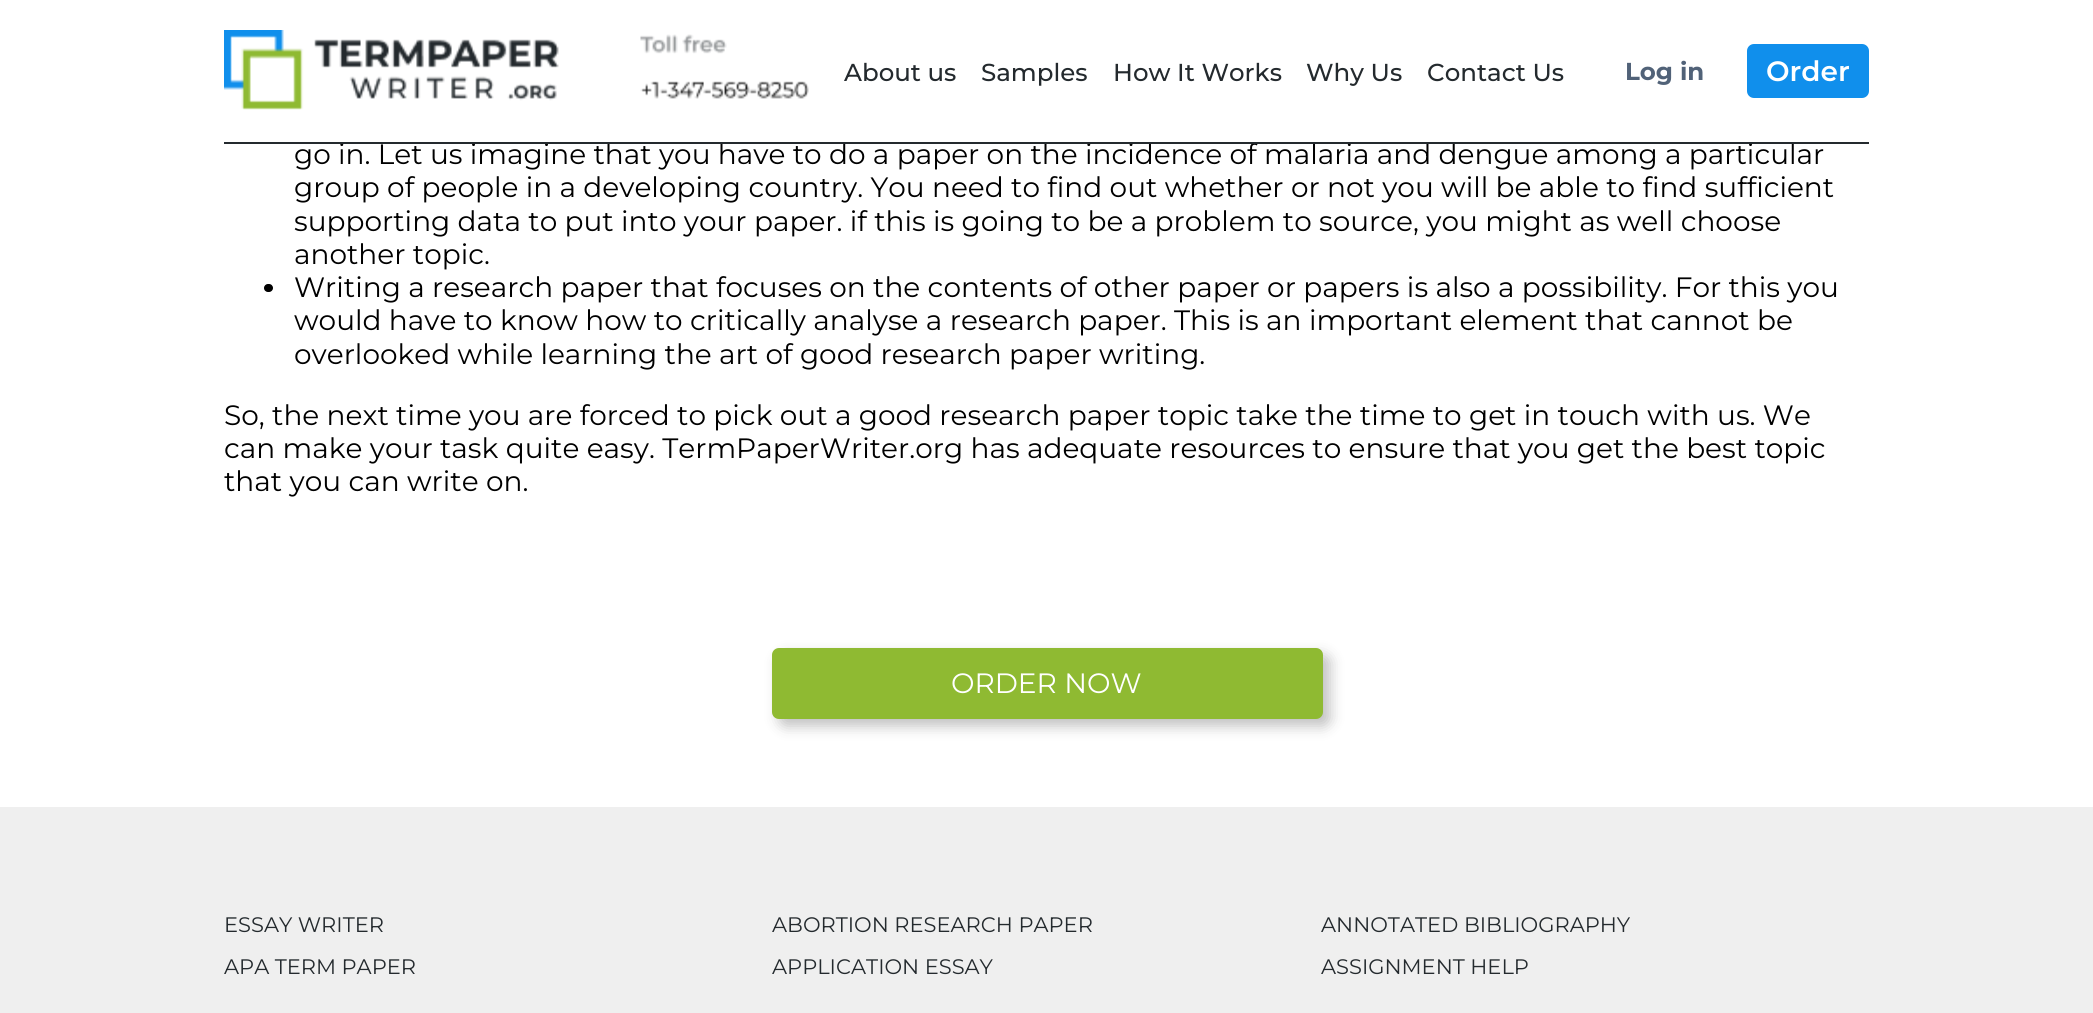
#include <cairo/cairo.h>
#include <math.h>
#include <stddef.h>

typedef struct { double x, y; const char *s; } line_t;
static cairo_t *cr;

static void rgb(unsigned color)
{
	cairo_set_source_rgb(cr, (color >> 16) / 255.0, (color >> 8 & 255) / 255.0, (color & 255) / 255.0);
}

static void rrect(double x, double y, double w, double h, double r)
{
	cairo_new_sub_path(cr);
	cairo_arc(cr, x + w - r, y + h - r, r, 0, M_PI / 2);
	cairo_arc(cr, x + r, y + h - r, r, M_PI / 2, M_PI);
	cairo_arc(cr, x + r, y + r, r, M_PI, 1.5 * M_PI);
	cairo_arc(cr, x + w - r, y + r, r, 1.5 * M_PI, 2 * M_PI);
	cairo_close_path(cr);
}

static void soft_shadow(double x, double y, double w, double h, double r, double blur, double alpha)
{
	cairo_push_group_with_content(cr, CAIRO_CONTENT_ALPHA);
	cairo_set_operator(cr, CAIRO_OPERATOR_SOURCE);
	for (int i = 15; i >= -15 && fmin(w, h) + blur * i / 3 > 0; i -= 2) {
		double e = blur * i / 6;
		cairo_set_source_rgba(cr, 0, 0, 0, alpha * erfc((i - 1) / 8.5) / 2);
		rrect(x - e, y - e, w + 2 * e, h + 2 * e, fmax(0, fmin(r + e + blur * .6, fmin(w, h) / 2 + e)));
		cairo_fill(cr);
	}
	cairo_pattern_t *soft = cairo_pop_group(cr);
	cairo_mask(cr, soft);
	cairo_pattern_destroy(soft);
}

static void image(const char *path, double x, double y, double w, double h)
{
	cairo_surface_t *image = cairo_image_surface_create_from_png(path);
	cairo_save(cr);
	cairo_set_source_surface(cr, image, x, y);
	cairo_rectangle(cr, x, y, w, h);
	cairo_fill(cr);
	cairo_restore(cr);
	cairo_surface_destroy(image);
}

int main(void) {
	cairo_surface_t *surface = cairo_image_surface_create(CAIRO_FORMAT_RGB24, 2093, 1013);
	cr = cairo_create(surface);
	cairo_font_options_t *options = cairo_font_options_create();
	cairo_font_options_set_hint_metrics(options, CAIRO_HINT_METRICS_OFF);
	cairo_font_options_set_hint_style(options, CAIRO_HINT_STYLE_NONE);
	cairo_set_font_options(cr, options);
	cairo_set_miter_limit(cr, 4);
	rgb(0xffffff);
	cairo_paint(cr);
	image("img/1.png", 224, 30, 335, 80);
	image("img/2.png", 640, 34, 169, 65);
	rgb(0x108fec);
	rrect(1748, 45, 120, 52, 6);
	cairo_fill_preserve(cr);
	cairo_stroke(cr);
	rgb(0x000000);
	rrect(264, 284, 9, 8, 4);
	cairo_fill(cr);
	rgb(0x000000);
	soft_shadow(779, 655, 551, 71, 7, 7, 0.25);
	rgb(0x8fba32);
	rrect(773, 649, 549, 69, 6);
	cairo_fill_preserve(cr);
	cairo_stroke(cr);
	rgb(0xefefef);
	cairo_rectangle(cr, 0, 807, 2093, 206);
	cairo_fill(cr);
	cairo_select_font_face(cr, "Montserrat Medium", CAIRO_FONT_SLANT_NORMAL, CAIRO_FONT_WEIGHT_NORMAL);
	cairo_set_font_size(cr, 24.5);
	rgb(0x242a2e);
	{
		static const line_t items[] = {
			{844, 81, "About us"},
			{981, 81, "Samples"},
			{1113, 81, "How It Works"},
			{1306, 81, "Why Us"},
			{1427, 81, "Contact Us"},
		};
		for (size_t i = 0; i < sizeof items / sizeof *items; i++) {
			cairo_move_to(cr, items[i].x, items[i].y);
			cairo_show_text(cr, items[i].s);
		}
	}
	cairo_select_font_face(cr, "Montserrat", CAIRO_FONT_SLANT_NORMAL, CAIRO_FONT_WEIGHT_BOLD);
	rgb(0x516278);
	cairo_move_to(cr, 1625, 80);
	cairo_show_text(cr, "Log in");
	cairo_select_font_face(cr, "Montserrat SemiBold", CAIRO_FONT_SLANT_NORMAL, CAIRO_FONT_WEIGHT_NORMAL);
	cairo_set_font_size(cr, 28);
	rgb(0xffffff);
	cairo_move_to(cr, 1766, 81);
	cairo_show_text(cr, "Order");
	cairo_select_font_face(cr, "Montserrat", CAIRO_FONT_SLANT_NORMAL, CAIRO_FONT_WEIGHT_NORMAL);
	rgb(0x000000);
	cairo_move_to(cr, 294, 164);
	cairo_show_text(cr, "go in. Let us imagine that you have to do a paper on the incidence of malaria and dengue among a particular");
	rgb(0xffffff);
	cairo_rectangle(cr, 340, 143, 1454, 1);
	cairo_fill(cr);
	rgb(0x242a2e);
	cairo_rectangle(cr, 224, 142, 1645, 2);
	cairo_fill(cr);
	rgb(0x000000);
	{
		static const line_t items[] = {
			{294, 197, "group of people in a developing country. You need to find out whether or not you will be able to find sufficient"},
			{294, 231, "supporting data to put into your paper. if this is going to be a problem to source, you might as well choose"},
			{294, 264, "another topic."},
			{294, 297, "Writing a research paper that focuses on the contents of other paper or papers is also a possibility. For this you"},
			{294, 330, "would have to know how to critically analyse a research paper. This is an important element that cannot be"},
			{294, 364, "overlooked while learning the art of good research paper writing."},
			{224, 425, "So, the next time you are forced to pick out a good research paper topic take the time to get in touch with us. We"},
			{224, 458, "can make your task quite easy. TermPaperWriter.org has adequate resources to ensure that you get the best topic"},
			{224, 491, "that you can write on."},
		};
		for (size_t i = 0; i < sizeof items / sizeof *items; i++) {
			cairo_move_to(cr, items[i].x, items[i].y);
			cairo_show_text(cr, items[i].s);
		}
	}
	rgb(0xffffff);
	cairo_move_to(cr, 951, 693);
	cairo_show_text(cr, "ORDER NOW");
	cairo_set_font_size(cr, 21);
	rgb(0x242a2e);
	{
		static const line_t items[] = {
			{224, 932, "ESSAY WRITER"},
			{772, 932, "ABORTION RESEARCH PAPER"},
			{1321, 932, "ANNOTATED BIBLIOGRAPHY"},
			{224, 974, "APA TERM PAPER"},
			{772, 974, "APPLICATION ESSAY"},
			{1321, 974, "ASSIGNMENT HELP"},
		};
		for (size_t i = 0; i < sizeof items / sizeof *items; i++) {
			cairo_move_to(cr, items[i].x, items[i].y);
			cairo_show_text(cr, items[i].s);
		}
	}
	cairo_surface_write_to_png(surface, "page.png");
	cairo_font_options_destroy(options);
	cairo_destroy(cr);
	cairo_surface_destroy(surface);
	return 0;
}
